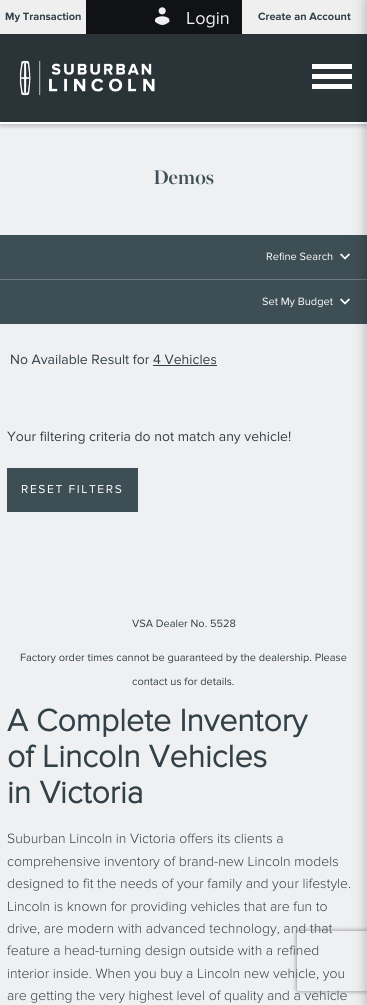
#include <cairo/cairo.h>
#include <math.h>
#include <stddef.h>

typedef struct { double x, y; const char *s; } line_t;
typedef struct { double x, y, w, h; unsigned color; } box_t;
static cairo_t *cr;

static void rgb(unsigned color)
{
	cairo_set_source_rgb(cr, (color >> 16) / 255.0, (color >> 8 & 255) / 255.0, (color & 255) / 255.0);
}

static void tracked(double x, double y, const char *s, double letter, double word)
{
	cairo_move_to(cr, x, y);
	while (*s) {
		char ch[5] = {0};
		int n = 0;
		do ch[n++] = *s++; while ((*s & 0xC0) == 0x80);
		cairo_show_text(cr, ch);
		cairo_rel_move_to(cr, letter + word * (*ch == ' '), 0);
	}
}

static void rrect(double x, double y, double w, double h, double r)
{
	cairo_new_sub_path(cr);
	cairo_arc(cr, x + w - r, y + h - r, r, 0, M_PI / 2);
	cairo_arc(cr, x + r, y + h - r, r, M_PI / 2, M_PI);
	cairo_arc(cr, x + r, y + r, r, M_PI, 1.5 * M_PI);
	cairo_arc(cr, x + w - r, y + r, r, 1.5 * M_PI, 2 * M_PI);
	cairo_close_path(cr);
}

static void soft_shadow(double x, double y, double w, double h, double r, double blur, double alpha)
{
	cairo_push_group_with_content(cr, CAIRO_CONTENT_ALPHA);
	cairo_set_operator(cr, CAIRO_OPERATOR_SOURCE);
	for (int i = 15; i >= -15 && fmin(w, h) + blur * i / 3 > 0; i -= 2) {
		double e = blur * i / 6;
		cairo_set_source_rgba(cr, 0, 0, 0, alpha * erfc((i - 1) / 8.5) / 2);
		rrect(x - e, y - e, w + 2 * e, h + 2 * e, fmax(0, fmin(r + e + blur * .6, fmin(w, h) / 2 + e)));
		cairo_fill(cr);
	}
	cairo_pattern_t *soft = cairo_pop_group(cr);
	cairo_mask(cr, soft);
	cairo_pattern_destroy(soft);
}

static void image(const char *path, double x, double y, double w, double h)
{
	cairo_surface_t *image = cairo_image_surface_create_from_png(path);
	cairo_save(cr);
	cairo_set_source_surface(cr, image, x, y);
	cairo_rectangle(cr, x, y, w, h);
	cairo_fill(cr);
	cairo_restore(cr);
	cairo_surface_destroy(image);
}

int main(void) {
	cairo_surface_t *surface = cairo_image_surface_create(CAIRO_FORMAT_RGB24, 367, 1005);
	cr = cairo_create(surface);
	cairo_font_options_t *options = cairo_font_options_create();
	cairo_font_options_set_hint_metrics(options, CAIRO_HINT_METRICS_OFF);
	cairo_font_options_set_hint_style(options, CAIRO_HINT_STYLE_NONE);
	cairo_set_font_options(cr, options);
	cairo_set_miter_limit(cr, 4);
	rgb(0xeff0f2);
	cairo_paint(cr);
	rgb(0x000000);
	soft_shadow(0, 37, 367, 90, 0, 1.5, 0.16);
	rgb(0x101215);
	cairo_rectangle(cr, 86, 0, 156, 34);
	cairo_fill(cr);
	rgb(0xefefef);
	cairo_rectangle(cr, 0, 0, 86, 34);
	cairo_fill(cr);
	image("img/1.png", 155, 7, 15, 18);
	{
		static const box_t items[] = {
			{242, 0, 125, 34, 0xefefef},
			{0, 235, 367, 44, 0x3e4e55},
			{0, 279, 367, 1, 0x6c787e},
		};
		for (size_t i = 0; i < sizeof items / sizeof *items; i++) {
			rgb(items[i].color);
			cairo_rectangle(cr, items[i].x, items[i].y, items[i].w, items[i].h);
			cairo_fill(cr);
		}
	}
	image("img/2.png", 340, 253, 10, 7);
	rgb(0x3e4e55);
	cairo_rectangle(cr, 0, 280, 367, 44);
	cairo_fill(cr);
	image("img/2.png", 340, 298, 10, 7);
	{
		static const box_t items[] = {
			{0, 34, 367, 88, 0x293338},
			{0, 122, 367, 2, 0xffffff},
			{312, 64, 40, 5, 0xffffff},
			{312, 74, 40, 5, 0xffffff},
			{312, 84, 40, 5, 0xffffff},
		};
		for (size_t i = 0; i < sizeof items / sizeof *items; i++) {
			rgb(items[i].color);
			cairo_rectangle(cr, items[i].x, items[i].y, items[i].w, items[i].h);
			cairo_fill(cr);
		}
	}
	rgb(0x000000);
	soft_shadow(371, 0, 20, 1005, 0, 8, 0.5);
	rgb(0x324047);
	cairo_rectangle(cr, 153, 365, 64, 1);
	cairo_fill(cr);
	rgb(0x3e4e55);
	cairo_rectangle(cr, 7, 468, 131, 44);
	cairo_fill(cr);
	image("img/3.png", 19, 60, 136, 36);
	cairo_save(cr);
	cairo_set_fill_rule(cr, CAIRO_FILL_RULE_EVEN_ODD);
	cairo_new_path(cr);
	cairo_move_to(cr, 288, 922);
	cairo_line_to(cr, 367, 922);
	cairo_line_to(cr, 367, 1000);
	cairo_line_to(cr, 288, 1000);
	cairo_close_path(cr);
	cairo_move_to(cr, 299, 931);
	cairo_line_to(cr, 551, 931);
	cairo_curve_to(cr, 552, 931, 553, 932, 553, 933);
	cairo_line_to(cr, 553, 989);
	cairo_curve_to(cr, 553, 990, 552, 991, 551, 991);
	cairo_line_to(cr, 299, 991);
	cairo_curve_to(cr, 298, 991, 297, 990, 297, 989);
	cairo_line_to(cr, 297, 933);
	cairo_curve_to(cr, 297, 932, 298, 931, 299, 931);
	cairo_close_path(cr);
	cairo_clip(cr);
	rgb(0x808080);
	soft_shadow(297, 931, 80, 60, 2, 2.5, 1);
	cairo_restore(cr);
	cairo_select_font_face(cr, "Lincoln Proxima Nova", CAIRO_FONT_SLANT_NORMAL, CAIRO_FONT_WEIGHT_BOLD);
	cairo_set_font_size(cr, 11);
	rgb(0x324047);
	cairo_move_to(cr, 5, 20);
	cairo_show_text(cr, "My Transaction");
	cairo_select_font_face(cr, "Lincoln Proxima Nova", CAIRO_FONT_SLANT_NORMAL, CAIRO_FONT_WEIGHT_NORMAL);
	cairo_set_font_size(cr, 18);
	rgb(0xefefef);
	cairo_move_to(cr, 186, 24);
	cairo_show_text(cr, "Login");
	cairo_select_font_face(cr, "Lincoln Proxima Nova", CAIRO_FONT_SLANT_NORMAL, CAIRO_FONT_WEIGHT_BOLD);
	cairo_set_font_size(cr, 11);
	rgb(0x324047);
	cairo_move_to(cr, 258, 20);
	cairo_show_text(cr, "Create an Account");
	cairo_select_font_face(cr, "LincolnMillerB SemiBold", CAIRO_FONT_SLANT_NORMAL, CAIRO_FONT_WEIGHT_NORMAL);
	cairo_set_font_size(cr, 20);
	rgb(0x3e4e55);
	cairo_move_to(cr, 153, 184);
	cairo_show_text(cr, "Demos");
	cairo_select_font_face(cr, "Lincoln Proxima Nova", CAIRO_FONT_SLANT_NORMAL, CAIRO_FONT_WEIGHT_NORMAL);
	cairo_set_font_size(cr, 11);
	rgb(0xffffff);
	cairo_move_to(cr, 266, 260);
	cairo_show_text(cr, "Refine Search");
	cairo_move_to(cr, 262, 305);
	cairo_show_text(cr, "Set My Budget");
	cairo_set_font_size(cr, 14);
	rgb(0x324047);
	cairo_move_to(cr, 10, 364);
	cairo_show_text(cr, "No Available Result for 4 Vehicles");
	cairo_move_to(cr, 7, 441);
	cairo_show_text(cr, "Your filtering criteria do not match any vehicle!");
	cairo_set_font_size(cr, 12);
	rgb(0xffffff);
	tracked(21, 493, "RESET FILTERS", 1.6, 0);
	cairo_set_font_size(cr, 11);
	rgb(0x324047);
	{
		static const line_t items[] = {
			{132, 627, "VSA Dealer No. 5528"},
			{20, 661, "Factory order times cannot be guaranteed by the dealership. Please"},
			{132, 685, "contact us for details."},
		};
		for (size_t i = 0; i < sizeof items / sizeof *items; i++) {
			cairo_move_to(cr, items[i].x, items[i].y);
			cairo_show_text(cr, items[i].s);
		}
	}
	cairo_select_font_face(cr, "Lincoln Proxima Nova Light", CAIRO_FONT_SLANT_NORMAL, CAIRO_FONT_WEIGHT_BOLD);
	cairo_set_font_size(cr, 32);
	{
		static const line_t items[] = {
			{7, 731, "A Complete Inventory"},
			{7, 767, "of Lincoln Vehicles"},
			{7, 803, "in Victoria"},
		};
		for (size_t i = 0; i < sizeof items / sizeof *items; i++) {
			cairo_move_to(cr, items[i].x, items[i].y);
			cairo_show_text(cr, items[i].s);
		}
	}
	cairo_select_font_face(cr, "Lincoln Proxima Nova Light Light", CAIRO_FONT_SLANT_NORMAL, CAIRO_FONT_WEIGHT_NORMAL);
	cairo_set_font_size(cr, 14);
	{
		static const line_t items[] = {
			{7, 843, "Suburban Lincoln in Victoria offers its clients a"},
			{7, 866, "comprehensive inventory of brand-new Lincoln models"},
			{7, 888, "designed to fit the needs of your family and your lifestyle."},
			{7, 911, "Lincoln is known for providing vehicles that are fun to"},
			{7, 933, "drive, are modern with advanced technology, and that"},
			{7, 955, "feature a head-turning design outside with a refined"},
			{7, 978, "interior inside. When you buy a Lincoln new vehicle, you"},
			{7, 1000, "are getting the very highest level of quality and a vehicle"},
		};
		for (size_t i = 0; i < sizeof items / sizeof *items; i++) {
			cairo_move_to(cr, items[i].x, items[i].y);
			cairo_show_text(cr, items[i].s);
		}
	}
	cairo_surface_write_to_png(surface, "page.png");
	cairo_font_options_destroy(options);
	cairo_destroy(cr);
	cairo_surface_destroy(surface);
	return 0;
}
